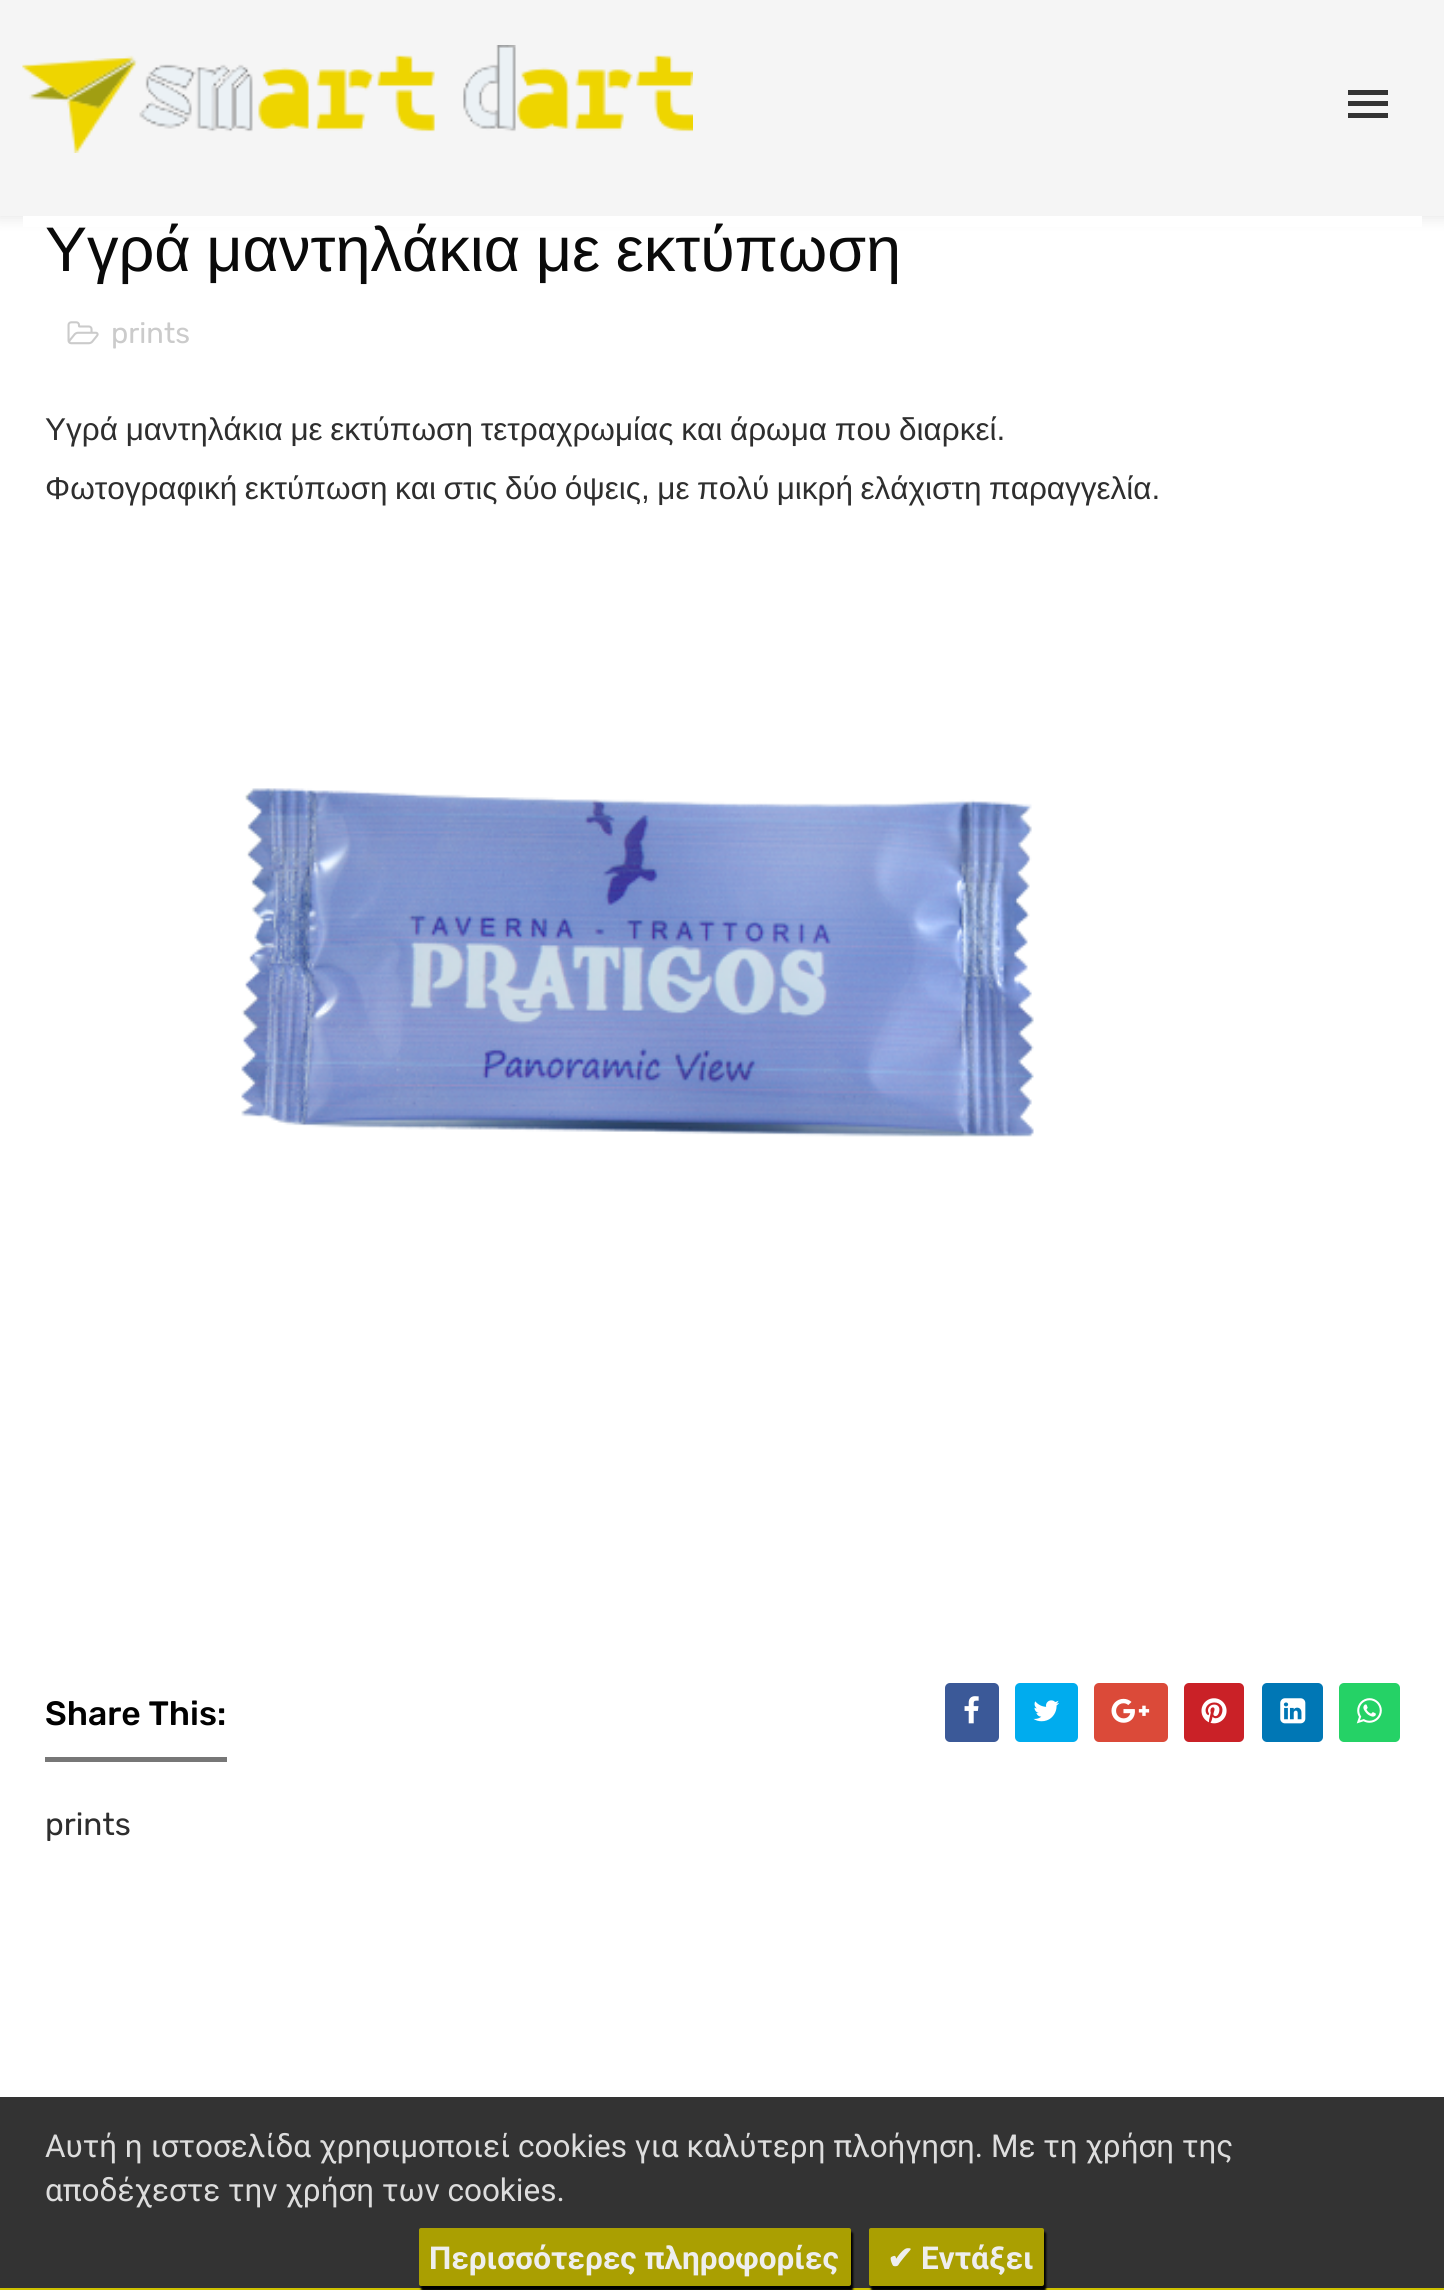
#include <cairo/cairo.h>
#include <math.h>
#include <stddef.h>

typedef struct { double x, y, w, h; unsigned color; } box_t;
static cairo_t *cr;

static void rgb(unsigned color)
{
	cairo_set_source_rgb(cr, (color >> 16) / 255.0, (color >> 8 & 255) / 255.0, (color & 255) / 255.0);
}

static void tracked(double x, double y, const char *s, double letter, double word)
{
	cairo_move_to(cr, x, y);
	while (*s) {
		char ch[5] = {0};
		int n = 0;
		do ch[n++] = *s++; while ((*s & 0xC0) == 0x80);
		cairo_show_text(cr, ch);
		cairo_rel_move_to(cr, letter + word * (*ch == ' '), 0);
	}
}

static void rrect(double x, double y, double w, double h, double r)
{
	cairo_new_sub_path(cr);
	cairo_arc(cr, x + w - r, y + h - r, r, 0, M_PI / 2);
	cairo_arc(cr, x + r, y + h - r, r, M_PI / 2, M_PI);
	cairo_arc(cr, x + r, y + r, r, M_PI, 1.5 * M_PI);
	cairo_arc(cr, x + w - r, y + r, r, 1.5 * M_PI, 2 * M_PI);
	cairo_close_path(cr);
}

static void soft_shadow(double x, double y, double w, double h, double r, double blur, double alpha)
{
	cairo_push_group_with_content(cr, CAIRO_CONTENT_ALPHA);
	cairo_set_operator(cr, CAIRO_OPERATOR_SOURCE);
	for (int i = 15; i >= -15 && fmin(w, h) + blur * i / 3 > 0; i -= 2) {
		double e = blur * i / 6;
		cairo_set_source_rgba(cr, 0, 0, 0, alpha * erfc((i - 1) / 8.5) / 2);
		rrect(x - e, y - e, w + 2 * e, h + 2 * e, fmax(0, fmin(r + e + blur * .6, fmin(w, h) / 2 + e)));
		cairo_fill(cr);
	}
	cairo_pattern_t *soft = cairo_pop_group(cr);
	cairo_mask(cr, soft);
	cairo_pattern_destroy(soft);
}

static void image(const char *path, double x, double y, double w, double h)
{
	cairo_surface_t *image = cairo_image_surface_create_from_png(path);
	cairo_save(cr);
	cairo_set_source_surface(cr, image, x, y);
	cairo_rectangle(cr, x, y, w, h);
	cairo_fill(cr);
	cairo_restore(cr);
	cairo_surface_destroy(image);
}

int main(void) {
	cairo_surface_t *surface = cairo_image_surface_create(CAIRO_FORMAT_RGB24, 1444, 2290);
	cr = cairo_create(surface);
	cairo_font_options_t *options = cairo_font_options_create();
	cairo_font_options_set_hint_metrics(options, CAIRO_HINT_METRICS_OFF);
	cairo_font_options_set_hint_style(options, CAIRO_HINT_STYLE_NONE);
	cairo_set_font_options(cr, options);
	cairo_set_miter_limit(cr, 4);
	rgb(0xffffff);
	cairo_paint(cr);
	rgb(0x000000);
	soft_shadow(-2, -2, 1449, 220, 0, 7, 0.1);
	rgb(0xf5f5f5);
	cairo_rectangle(cr, 0, 0, 1444, 216);
	cairo_fill(cr);
	image("img/1.png", 22, 45, 671, 108);
	{
		static const box_t items[] = {
			{1348, 90, 40, 5, 0x343434},
			{1348, 101, 40, 5, 0x343434},
			{1348, 113, 40, 5, 0x343434},
			{23, 216, 1399, 11, 0xffffff},
		};
		for (size_t i = 0; i < sizeof items / sizeof *items; i++) {
			rgb(items[i].color);
			cairo_rectangle(cr, items[i].x, items[i].y, items[i].w, items[i].h);
			cairo_fill(cr);
		}
	}
	image("img/2.png", 67, 321, 32, 24);
	image("img/3.png", 241, 788, 793, 349);
	rgb(0x777777);
	cairo_rectangle(cr, 45, 1757, 182, 5);
	cairo_fill(cr);
	rgb(0x3b5998);
	rrect(945, 1683, 54, 59, 5);
	cairo_fill(cr);
	image("img/4.png", 964, 1696, 15, 28);
	rgb(0x00acee);
	rrect(1015, 1683, 63, 59, 5);
	cairo_fill(cr);
	image("img/5.png", 1033, 1700, 26, 22);
	rgb(0xdb4a39);
	rrect(1094, 1683, 74, 59, 5);
	cairo_fill(cr);
	image("img/6.png", 1111, 1698, 39, 25);
	rgb(0xca2127);
	rrect(1184, 1683, 60, 59, 5);
	cairo_fill(cr);
	image("img/7.png", 1201, 1698, 26, 26);
	rgb(0x0077b5);
	rrect(1262, 1683, 61, 59, 5);
	cairo_fill(cr);
	image("img/8.png", 1280, 1698, 26, 26);
	rgb(0x25d266);
	rrect(1339, 1683, 61, 59, 5);
	cairo_fill(cr);
	image("img/9.png", 1356, 1698, 26, 26);
	rgb(0x333333);
	cairo_rectangle(cr, 0, 2097, 1444, 191);
	cairo_fill(cr);
	rgb(0xcdc100);
	cairo_rectangle(cr, 0, 2288, 1444, 2);
	cairo_fill(cr);
	rgb(0x000000);
	soft_shadow(421, 2232, 432, 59, 2, 1, 1);
	rgb(0xaa9f01);
	rrect(419, 2228, 432, 58, 2);
	cairo_fill(cr);
	rgb(0x000000);
	soft_shadow(871, 2232, 175, 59, 2, 1, 1);
	rgb(0xaa9f01);
	rrect(869, 2228, 175, 58, 2);
	cairo_fill(cr);
	cairo_select_font_face(cr, "Liberation Sans", CAIRO_FONT_SLANT_NORMAL, CAIRO_FONT_WEIGHT_NORMAL);
	cairo_set_font_size(cr, 63);
	rgb(0x0a0a0a);
	tracked(45, 271, "Υγρά μαντηλάκια με εκτύπωση", 0, -2);
	cairo_select_font_face(cr, "Rubik", CAIRO_FONT_SLANT_NORMAL, CAIRO_FONT_WEIGHT_NORMAL);
	cairo_set_font_size(cr, 29);
	rgb(0xcbcbcb);
	cairo_move_to(cr, 111, 343);
	cairo_show_text(cr, "prints");
	cairo_select_font_face(cr, "Liberation Sans", CAIRO_FONT_SLANT_NORMAL, CAIRO_FONT_WEIGHT_NORMAL);
	cairo_set_font_size(cr, 31.5);
	rgb(0x2e2e2e);
	tracked(45, 440, "Υγρά μαντηλάκια με εκτύπωση τετραχρωμίας και άρωμα που διαρκεί.", 0, -1);
	tracked(45, 499, "Φωτογραφική εκτύπωση και στις δύο όψεις, με πολύ μικρή ελάχιστη παραγγελία.", 0, -1.25);
	cairo_select_font_face(cr, "Rubik Medium", CAIRO_FONT_SLANT_NORMAL, CAIRO_FONT_WEIGHT_NORMAL);
	cairo_set_font_size(cr, 33.75);
	rgb(0x010101);
	cairo_move_to(cr, 45, 1725);
	cairo_show_text(cr, "Share This:");
	cairo_select_font_face(cr, "Rubik", CAIRO_FONT_SLANT_NORMAL, CAIRO_FONT_WEIGHT_NORMAL);
	cairo_set_font_size(cr, 31.5);
	rgb(0x2e2e2e);
	cairo_move_to(cr, 45, 1835);
	cairo_show_text(cr, "prints");
	cairo_select_font_face(cr, "Roboto", CAIRO_FONT_SLANT_NORMAL, CAIRO_FONT_WEIGHT_NORMAL);
	rgb(0xdddddd);
	cairo_move_to(cr, 45, 2157);
	cairo_show_text(cr, "Αυτή η ιστοσελίδα χρησιμοποιεί cookies για καλύτερη πλοήγηση. Με τη χρήση της");
	cairo_move_to(cr, 45, 2201);
	cairo_show_text(cr, "αποδέχεστε την χρήση των cookies.");
	cairo_select_font_face(cr, "Roboto", CAIRO_FONT_SLANT_NORMAL, CAIRO_FONT_WEIGHT_BOLD);
	rgb(0xeeeeee);
	cairo_move_to(cr, 429, 2269);
	cairo_show_text(cr, "Περισσότερες πληροφορίες");
	cairo_select_font_face(cr, "DejaVu Sans", CAIRO_FONT_SLANT_NORMAL, CAIRO_FONT_WEIGHT_BOLD);
	cairo_move_to(cr, 887, 2269);
	cairo_show_text(cr, "✔");
	cairo_select_font_face(cr, "Roboto", CAIRO_FONT_SLANT_NORMAL, CAIRO_FONT_WEIGHT_BOLD);
	cairo_move_to(cr, 921, 2269);
	cairo_show_text(cr, "Εντάξει");
	cairo_surface_write_to_png(surface, "page.png");
	cairo_font_options_destroy(options);
	cairo_destroy(cr);
	cairo_surface_destroy(surface);
	return 0;
}
